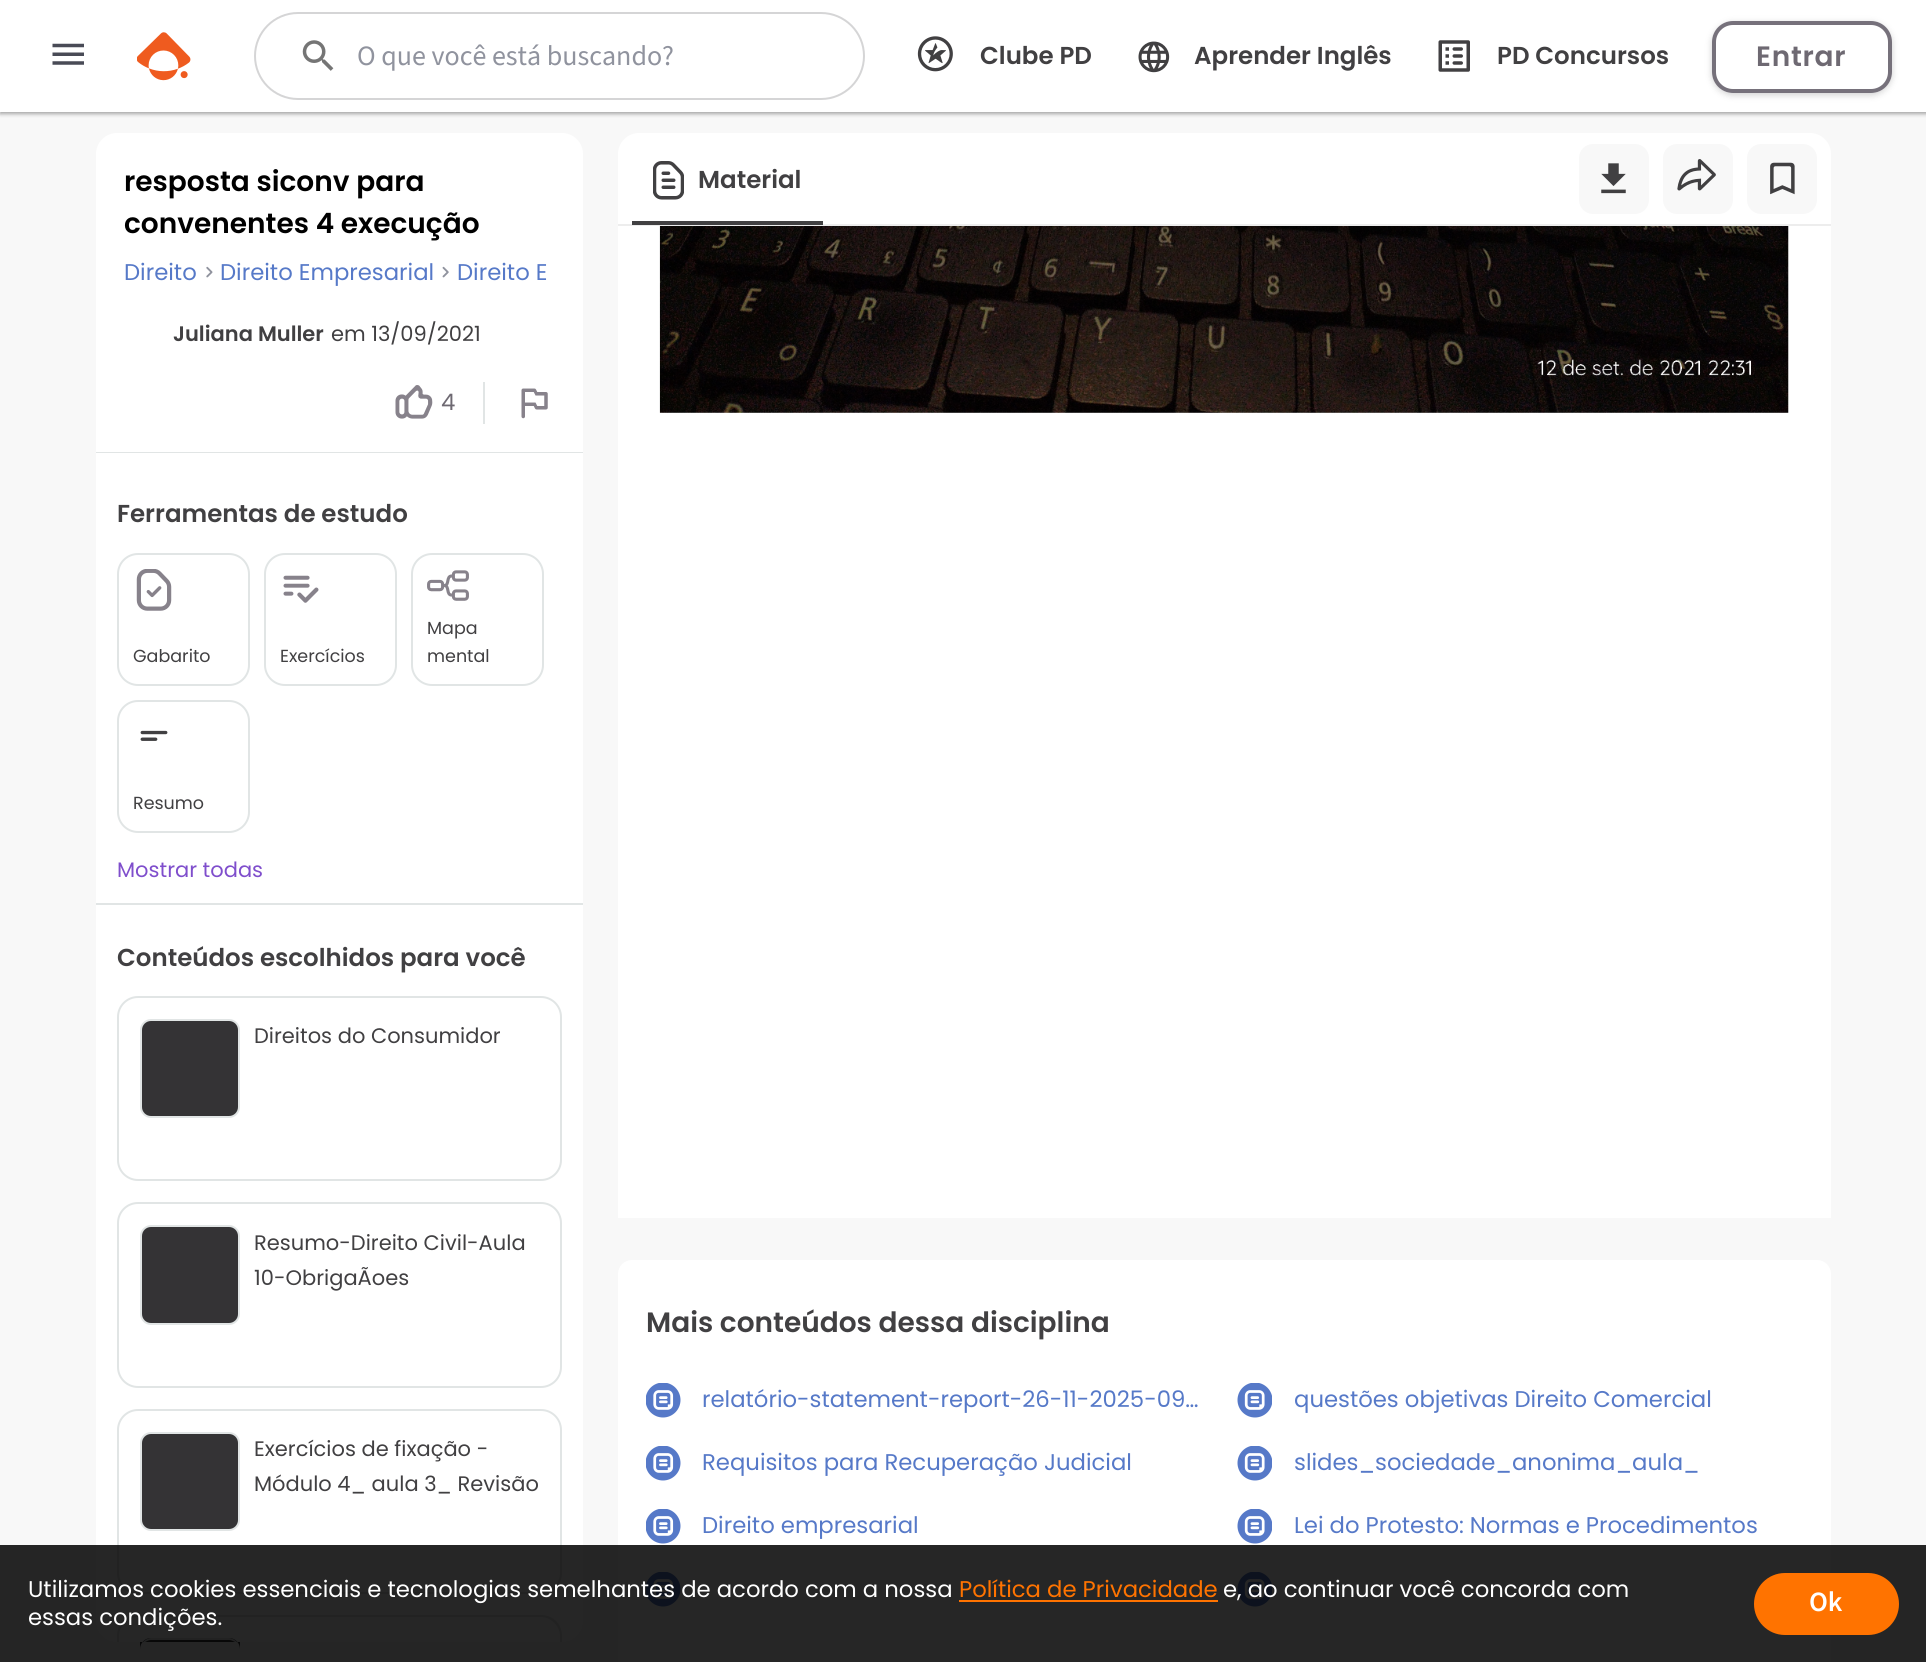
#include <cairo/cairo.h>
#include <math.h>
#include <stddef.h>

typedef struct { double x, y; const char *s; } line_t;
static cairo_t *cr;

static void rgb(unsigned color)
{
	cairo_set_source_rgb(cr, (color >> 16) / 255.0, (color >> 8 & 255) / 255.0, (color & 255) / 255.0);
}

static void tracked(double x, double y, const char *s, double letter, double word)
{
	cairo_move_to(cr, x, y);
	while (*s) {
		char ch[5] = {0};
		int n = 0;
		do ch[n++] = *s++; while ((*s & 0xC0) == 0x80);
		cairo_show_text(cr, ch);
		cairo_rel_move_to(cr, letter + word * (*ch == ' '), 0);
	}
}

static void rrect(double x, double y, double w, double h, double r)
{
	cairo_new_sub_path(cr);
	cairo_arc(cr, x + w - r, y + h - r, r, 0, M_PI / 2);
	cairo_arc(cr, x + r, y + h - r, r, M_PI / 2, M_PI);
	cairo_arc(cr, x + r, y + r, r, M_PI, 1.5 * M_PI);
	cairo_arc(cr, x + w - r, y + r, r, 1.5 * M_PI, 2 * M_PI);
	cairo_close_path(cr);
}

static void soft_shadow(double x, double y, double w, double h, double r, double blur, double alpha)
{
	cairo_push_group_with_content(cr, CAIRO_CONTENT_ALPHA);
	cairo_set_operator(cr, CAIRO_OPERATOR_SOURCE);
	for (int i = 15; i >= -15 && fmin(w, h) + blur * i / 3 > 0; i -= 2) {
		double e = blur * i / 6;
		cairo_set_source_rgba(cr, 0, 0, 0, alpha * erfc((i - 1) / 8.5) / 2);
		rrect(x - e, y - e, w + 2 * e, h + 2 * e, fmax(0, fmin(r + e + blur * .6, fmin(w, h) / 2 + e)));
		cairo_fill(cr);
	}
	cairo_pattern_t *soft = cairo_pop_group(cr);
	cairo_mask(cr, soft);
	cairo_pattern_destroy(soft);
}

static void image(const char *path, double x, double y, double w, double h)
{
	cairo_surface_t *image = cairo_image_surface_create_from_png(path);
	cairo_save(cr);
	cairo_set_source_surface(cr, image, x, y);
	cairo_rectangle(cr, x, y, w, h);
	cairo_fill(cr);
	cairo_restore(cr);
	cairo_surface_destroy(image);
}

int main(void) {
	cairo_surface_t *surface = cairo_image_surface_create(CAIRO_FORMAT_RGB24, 1926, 1662);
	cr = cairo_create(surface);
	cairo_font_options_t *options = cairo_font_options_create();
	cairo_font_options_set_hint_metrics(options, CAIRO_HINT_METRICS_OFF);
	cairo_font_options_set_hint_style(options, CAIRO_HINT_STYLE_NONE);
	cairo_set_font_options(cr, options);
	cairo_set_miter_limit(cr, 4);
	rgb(0xf8f8f8);
	cairo_paint(cr);
	rgb(0x000000);
	soft_shadow(0, 2, 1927, 112, 0, 2, 0.34);
	rgb(0xffffff);
	cairo_rectangle(cr, 0, 0, 1926, 112);
	cairo_fill(cr);
	image("img/1.png", 52, 43, 32, 22);
	image("img/2.png", 137, 32, 54, 49);
	rrect(255, 13, 609, 86, 43);
	rgb(0xd5d5d6);
	cairo_stroke(cr);
	image("img/3.png", 302, 40, 32, 31);
	image("img/4.png", 917, 36, 36, 36);
	image("img/5.png", 1138, 41, 32, 32);
	image("img/6.png", 1438, 40, 32, 32);
	cairo_save(cr);
	cairo_set_fill_rule(cr, CAIRO_FILL_RULE_EVEN_ODD);
	cairo_new_path(cr);
	cairo_move_to(cr, 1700, 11);
	cairo_line_to(cr, 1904, 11);
	cairo_line_to(cr, 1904, 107);
	cairo_line_to(cr, 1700, 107);
	cairo_close_path(cr);
	cairo_move_to(cr, 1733, 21);
	cairo_line_to(cr, 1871, 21);
	cairo_curve_to(cr, 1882.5, 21, 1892, 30.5, 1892, 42);
	cairo_line_to(cr, 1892, 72);
	cairo_curve_to(cr, 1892, 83.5, 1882.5, 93, 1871, 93);
	cairo_line_to(cr, 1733, 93);
	cairo_curve_to(cr, 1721.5, 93, 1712, 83.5, 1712, 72);
	cairo_line_to(cr, 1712, 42);
	cairo_curve_to(cr, 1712, 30.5, 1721.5, 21, 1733, 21);
	cairo_close_path(cr);
	cairo_clip(cr);
	rgb(0x414042);
	soft_shadow(1712, 23, 180, 72, 21, 3.5, 0.25);
	cairo_restore(cr);
	rrect(1714, 23, 176, 68, 19);
	rgb(0x76717b);
	cairo_set_line_width(cr, 4);
	cairo_stroke(cr);
	rgb(0xffffff);
	cairo_new_path(cr);
	cairo_move_to(cr, 117, 133);
	cairo_line_to(cr, 562, 133);
	cairo_curve_to(cr, 573.5, 133, 583, 142.5, 583, 154);
	cairo_line_to(cr, 583, 453);
	cairo_line_to(cr, 96, 453);
	cairo_line_to(cr, 96, 154);
	cairo_curve_to(cr, 96, 142.5, 105.5, 133, 117, 133);
	cairo_close_path(cr);
	cairo_fill(cr);
	rgb(0xe1e5e5);
	cairo_rectangle(cr, 96, 452, 487, 1);
	cairo_fill(cr);
	image("img/7.png", 206, 266, 7, 12);
	image("img/8.png", 442, 266, 7, 12);
	image("img/9.png", 395, 385, 38, 34);
	cairo_rectangle(cr, 483, 382, 2, 42);
	cairo_fill(cr);
	image("img/10.png", 521, 388, 27, 31);
	rgb(0xffffff);
	cairo_new_path(cr);
	cairo_move_to(cr, 96, 453);
	cairo_line_to(cr, 583, 453);
	cairo_line_to(cr, 583, 1621);
	cairo_curve_to(cr, 583, 1632.5, 573.5, 1642, 562, 1642);
	cairo_line_to(cr, 117, 1642);
	cairo_curve_to(cr, 105.5, 1642, 96, 1632.5, 96, 1621);
	cairo_close_path(cr);
	cairo_fill(cr);
	rgb(0xe1e5e5);
	cairo_rectangle(cr, 96, 903, 487, 2);
	cairo_fill(cr);
	rrect(118, 554, 131, 131, 20);
	cairo_set_line_width(cr, 2);
	cairo_stroke(cr);
	image("img/11.png", 136, 569, 36, 42);
	rrect(265, 554, 131, 131, 20);
	cairo_stroke(cr);
	image("img/12.png", 283, 575, 36, 28);
	rrect(412, 554, 131, 131, 20);
	cairo_stroke(cr);
	image("img/13.png", 427, 570, 42, 31);
	rrect(118, 701, 131, 131, 20);
	cairo_stroke(cr);
	image("img/14.png", 140, 730, 28, 11);
	rrect(118, 997, 443, 183, 20);
	cairo_stroke(cr);
	rgb(0x343335);
	rrect(141, 1020, 98, 97, 10);
	cairo_fill_preserve(cr);
	rgb(0xe1e5e5);
	cairo_stroke(cr);
	rrect(118, 1203, 443, 184, 20);
	cairo_stroke(cr);
	rgb(0x343335);
	rrect(141, 1226, 98, 98, 10);
	cairo_fill_preserve(cr);
	rgb(0xe1e5e5);
	cairo_stroke(cr);
	rrect(118, 1410, 443, 183, 20);
	cairo_stroke(cr);
	rgb(0x343335);
	rrect(141, 1433, 98, 97, 10);
	cairo_fill_preserve(cr);
	rgb(0xe1e5e5);
	cairo_stroke(cr);
	cairo_new_path(cr);
	cairo_move_to(cr, 138, 1615);
	cairo_curve_to(cr, 126, 1615, 117, 1624, 117, 1636);
	cairo_line_to(cr, 117, 1642);
	cairo_line_to(cr, 119, 1642);
	cairo_line_to(cr, 119, 1636);
	cairo_curve_to(cr, 119, 1626, 128, 1617, 138, 1617);
	cairo_line_to(cr, 541, 1617);
	cairo_curve_to(cr, 551, 1617, 560, 1626, 560, 1636);
	cairo_line_to(cr, 560, 1642);
	cairo_line_to(cr, 562, 1642);
	cairo_line_to(cr, 562, 1636);
	cairo_curve_to(cr, 562, 1624, 553, 1615, 541, 1615);
	cairo_close_path(cr);
	cairo_fill(cr);
	rgb(0x343335);
	cairo_new_path(cr);
	cairo_move_to(cr, 151, 1638);
	cairo_line_to(cr, 229, 1638);
	cairo_curve_to(cr, 235, 1638, 240, 1643, 240, 1649);
	cairo_line_to(cr, 240, 1642);
	cairo_line_to(cr, 140, 1642);
	cairo_line_to(cr, 140, 1649);
	cairo_curve_to(cr, 140, 1643, 145, 1638, 151, 1638);
	cairo_close_path(cr);
	cairo_fill(cr);
	rgb(0xe1e5e5);
	cairo_new_path(cr);
	cairo_move_to(cr, 151, 1638);
	cairo_curve_to(cr, 148, 1638, 145, 1640, 143, 1642);
	cairo_line_to(cr, 145, 1642);
	cairo_curve_to(cr, 147, 1641, 149, 1640, 151, 1640);
	cairo_line_to(cr, 229, 1640);
	cairo_curve_to(cr, 231, 1640, 233, 1641, 235, 1642);
	cairo_line_to(cr, 237, 1642);
	cairo_curve_to(cr, 235, 1640, 232, 1638, 229, 1638);
	cairo_close_path(cr);
	cairo_fill(cr);
	rgb(0xffffff);
	cairo_new_path(cr);
	cairo_move_to(cr, 639, 133);
	cairo_line_to(cr, 1810, 133);
	cairo_curve_to(cr, 1821.5, 133, 1831, 142.5, 1831, 154);
	cairo_line_to(cr, 1831, 226);
	cairo_line_to(cr, 618, 226);
	cairo_line_to(cr, 618, 154);
	cairo_curve_to(cr, 618, 142.5, 627.5, 133, 639, 133);
	cairo_close_path(cr);
	cairo_fill(cr);
	rgb(0xededed);
	cairo_rectangle(cr, 618, 224, 1213, 2);
	cairo_fill(cr);
	rgb(0x414042);
	cairo_rectangle(cr, 632, 221, 191, 4);
	cairo_fill(cr);
	image("img/15.png", 653, 161, 31, 39);
	rgb(0xf8f8f8);
	rrect(1579, 144, 70, 70, 14);
	cairo_fill(cr);
	image("img/16.png", 1601, 163, 25, 31);
	rrect(1663, 144, 70, 70, 14);
	cairo_fill(cr);
	image("img/17.png", 1677, 159, 39, 32);
	rrect(1747, 144, 70, 70, 14);
	cairo_fill(cr);
	image("img/18.png", 1770, 162, 25, 33);
	rgb(0xffffff);
	cairo_rectangle(cr, 618, 226, 1213, 992);
	cairo_fill(cr);
	image("img/19.png", 659, 226, 1130, 187);
	rrect(618, 1260, 1213, 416, 14);
	cairo_fill(cr);
	image("img/20.png", 646, 1383, 35, 35);
	image("img/21.png", 1237, 1383, 35, 35);
	image("img/20.png", 646, 1446, 35, 35);
	image("img/21.png", 1237, 1446, 35, 35);
	image("img/20.png", 646, 1509, 35, 35);
	image("img/21.png", 1237, 1509, 35, 35);
	image("img/20.png", 646, 1572, 35, 35);
	image("img/21.png", 1237, 1572, 35, 35);
	cairo_set_source_rgba(cr, 0, 0, 0, 0.85);
	cairo_rectangle(cr, 0, 1545, 1926, 117);
	cairo_fill(cr);
	rgb(0xff7300);
	cairo_rectangle(cr, 959, 1600, 259, 2);
	cairo_fill(cr);
	rrect(1754, 1573, 145, 62, 31);
	cairo_fill(cr);
	cairo_select_font_face(cr, "Source Sans 3", CAIRO_FONT_SLANT_NORMAL, CAIRO_FONT_WEIGHT_NORMAL);
	cairo_set_font_size(cr, 28);
	rgb(0x90939e);
	cairo_move_to(cr, 357, 65);
	cairo_show_text(cr, "O que você está buscando?");
	cairo_select_font_face(cr, "Poppins SemiBold", CAIRO_FONT_SLANT_NORMAL, CAIRO_FONT_WEIGHT_NORMAL);
	cairo_set_font_size(cr, 24.5);
	rgb(0x414042);
	{
		static const line_t items[] = {
			{980, 64, "Clube PD"},
			{1194, 64, "Aprender Inglês"},
			{1497, 64, "PD Concursos"},
		};
		for (size_t i = 0; i < sizeof items / sizeof *items; i++) {
			cairo_move_to(cr, items[i].x, items[i].y);
			cairo_show_text(cr, items[i].s);
		}
	}
	cairo_set_font_size(cr, 28);
	rgb(0x6e6972);
	tracked(1756, 66, "Entrar", 0.75, 0);
	rgb(0x000000);
	cairo_move_to(cr, 124, 191);
	cairo_show_text(cr, "resposta siconv para");
	cairo_move_to(cr, 124, 233);
	cairo_show_text(cr, "convenentes 4 execução");
	cairo_select_font_face(cr, "Poppins", CAIRO_FONT_SLANT_NORMAL, CAIRO_FONT_WEIGHT_NORMAL);
	cairo_set_font_size(cr, 22.75);
	rgb(0x5679c8);
	{
		static const line_t items[] = {
			{124, 280, "Direito"},
			{220, 280, "Direito Empresarial"},
			{457, 280, "Direito E"},
		};
		for (size_t i = 0; i < sizeof items / sizeof *items; i++) {
			cairo_move_to(cr, items[i].x, items[i].y);
			cairo_show_text(cr, items[i].s);
		}
	}
	cairo_select_font_face(cr, "Poppins SemiBold", CAIRO_FONT_SLANT_NORMAL, CAIRO_FONT_WEIGHT_NORMAL);
	cairo_set_font_size(cr, 21);
	rgb(0x414042);
	cairo_move_to(cr, 173, 341);
	cairo_show_text(cr, "Juliana Muller");
	cairo_select_font_face(cr, "Poppins", CAIRO_FONT_SLANT_NORMAL, CAIRO_FONT_WEIGHT_NORMAL);
	cairo_move_to(cr, 331, 341);
	cairo_show_text(cr, "em 13/09/2021");
	cairo_set_font_size(cr, 22.75);
	rgb(0x6e6972);
	cairo_move_to(cr, 441, 410);
	cairo_show_text(cr, "4");
	cairo_select_font_face(cr, "Poppins SemiBold", CAIRO_FONT_SLANT_NORMAL, CAIRO_FONT_WEIGHT_NORMAL);
	cairo_set_font_size(cr, 24.5);
	rgb(0x414042);
	cairo_move_to(cr, 117, 522);
	cairo_show_text(cr, "Ferramentas de estudo");
	cairo_select_font_face(cr, "Poppins", CAIRO_FONT_SLANT_NORMAL, CAIRO_FONT_WEIGHT_NORMAL);
	cairo_set_font_size(cr, 17.5);
	{
		static const line_t items[] = {
			{133, 662, "Gabarito"},
			{280, 662, "Exercícios"},
			{427, 634, "Mapa"},
			{427, 662, "mental"},
			{133, 809, "Resumo"},
		};
		for (size_t i = 0; i < sizeof items / sizeof *items; i++) {
			cairo_move_to(cr, items[i].x, items[i].y);
			cairo_show_text(cr, items[i].s);
		}
	}
	cairo_set_font_size(cr, 21);
	rgb(0x7f4ecc);
	cairo_move_to(cr, 117, 877);
	cairo_show_text(cr, "Mostrar todas");
	cairo_select_font_face(cr, "Poppins SemiBold", CAIRO_FONT_SLANT_NORMAL, CAIRO_FONT_WEIGHT_NORMAL);
	cairo_set_font_size(cr, 24.5);
	rgb(0x414042);
	cairo_move_to(cr, 117, 966);
	cairo_show_text(cr, "Conteúdos escolhidos para você");
	cairo_select_font_face(cr, "Poppins", CAIRO_FONT_SLANT_NORMAL, CAIRO_FONT_WEIGHT_NORMAL);
	cairo_set_font_size(cr, 21);
	{
		static const line_t items[] = {
			{254, 1043, "Direitos do Consumidor"},
			{254, 1250, "Resumo-Direito Civil-Aula"},
			{254, 1285, "10-ObrigaÃoes"},
			{254, 1456, "Exercícios de fixação -"},
			{254, 1491, "Módulo 4_ aula 3_ Revisão"},
		};
		for (size_t i = 0; i < sizeof items / sizeof *items; i++) {
			cairo_move_to(cr, items[i].x, items[i].y);
			cairo_show_text(cr, items[i].s);
		}
	}
	cairo_select_font_face(cr, "Poppins SemiBold", CAIRO_FONT_SLANT_NORMAL, CAIRO_FONT_WEIGHT_NORMAL);
	cairo_set_font_size(cr, 24.5);
	cairo_move_to(cr, 698, 188);
	cairo_show_text(cr, "Material");
	cairo_set_font_size(cr, 28);
	cairo_move_to(cr, 646, 1332);
	cairo_show_text(cr, "Mais conteúdos dessa disciplina");
	cairo_select_font_face(cr, "Poppins", CAIRO_FONT_SLANT_NORMAL, CAIRO_FONT_WEIGHT_NORMAL);
	cairo_set_font_size(cr, 22.75);
	rgb(0x5679c8);
	{
		static const line_t items[] = {
			{702, 1407, "relatório-statement-report-26-11-2025-09…"},
			{1294, 1407, "questões objetivas Direito Comercial"},
			{702, 1470, "Requisitos para Recuperação Judicial"},
			{1294, 1470, "slides_sociedade_anonima_aula_"},
			{702, 1533, "Direito empresarial"},
			{1294, 1533, "Lei do Protesto: Normas e Procedimentos"},
		};
		for (size_t i = 0; i < sizeof items / sizeof *items; i++) {
			cairo_move_to(cr, items[i].x, items[i].y);
			cairo_show_text(cr, items[i].s);
		}
	}
	rgb(0xffffff);
	cairo_move_to(cr, 28, 1597);
	cairo_show_text(cr, "Utilizamos cookies essenciais e tecnologias semelhantes de acordo com a nossa");
	rgb(0xff7300);
	cairo_move_to(cr, 959, 1597);
	cairo_show_text(cr, "Política de Privacidade");
	rgb(0xffffff);
	cairo_move_to(cr, 1223, 1597);
	cairo_show_text(cr, "e, ao continuar você concorda com");
	cairo_move_to(cr, 28, 1625);
	cairo_show_text(cr, "essas condições.");
	cairo_select_font_face(cr, "Source Sans 3 SemiBold", CAIRO_FONT_SLANT_NORMAL, CAIRO_FONT_WEIGHT_NORMAL);
	cairo_set_font_size(cr, 28);
	cairo_move_to(cr, 1809, 1611);
	cairo_show_text(cr, "Ok");
	cairo_surface_write_to_png(surface, "page.png");
	cairo_font_options_destroy(options);
	cairo_destroy(cr);
	cairo_surface_destroy(surface);
	return 0;
}
